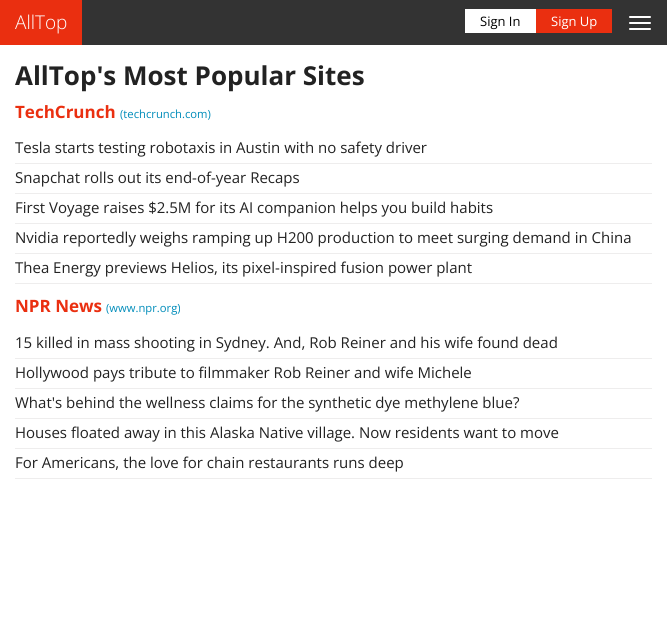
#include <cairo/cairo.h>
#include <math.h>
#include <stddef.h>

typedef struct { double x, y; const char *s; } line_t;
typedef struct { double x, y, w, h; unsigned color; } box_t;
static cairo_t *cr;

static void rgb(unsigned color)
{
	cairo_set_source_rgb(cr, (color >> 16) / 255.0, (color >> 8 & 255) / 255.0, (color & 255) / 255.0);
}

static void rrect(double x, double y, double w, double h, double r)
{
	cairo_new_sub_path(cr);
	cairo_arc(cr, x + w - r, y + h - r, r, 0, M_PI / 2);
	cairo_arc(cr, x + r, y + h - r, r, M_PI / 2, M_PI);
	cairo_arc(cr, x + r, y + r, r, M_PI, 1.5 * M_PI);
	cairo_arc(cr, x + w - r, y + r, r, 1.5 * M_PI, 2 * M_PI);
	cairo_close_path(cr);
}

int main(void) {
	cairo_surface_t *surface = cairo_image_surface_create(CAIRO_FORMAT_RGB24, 667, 622);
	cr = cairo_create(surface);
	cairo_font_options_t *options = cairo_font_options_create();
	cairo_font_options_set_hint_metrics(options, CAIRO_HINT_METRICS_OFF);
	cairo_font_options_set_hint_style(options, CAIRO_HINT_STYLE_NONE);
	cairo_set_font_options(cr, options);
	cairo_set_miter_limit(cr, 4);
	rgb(0xffffff);
	cairo_paint(cr);
	{
		static const box_t items[] = {
			{82, 0, 585, 45, 0x333333},
			{0, 0, 82, 45, 0xea2f10},
			{465, 9, 71, 24, 0xffffff},
			{536, 9, 76, 24, 0xea2f10},
		};
		for (size_t i = 0; i < sizeof items / sizeof *items; i++) {
			rgb(items[i].color);
			cairo_rectangle(cr, items[i].x, items[i].y, items[i].w, items[i].h);
			cairo_fill(cr);
		}
	}
	rgb(0xffffff);
	rrect(629, 16, 22, 2, 1);
	cairo_fill(cr);
	rrect(629, 22, 22, 2, 1);
	cairo_fill(cr);
	rrect(629, 28, 22, 2, 1);
	cairo_fill(cr);
	{
		static const box_t items[] = {
			{15, 163, 637, 1, 0xeeeded},
			{15, 193, 637, 1, 0xeeeded},
			{15, 223, 637, 1, 0xeeeded},
			{15, 253, 637, 1, 0xeeeded},
			{15, 283, 637, 1, 0xeeeded},
			{15, 358, 637, 1, 0xeeeded},
			{15, 388, 637, 1, 0xeeeded},
			{15, 418, 637, 1, 0xeeeded},
			{15, 448, 637, 1, 0xeeeded},
			{15, 478, 637, 1, 0xeeeded},
		};
		for (size_t i = 0; i < sizeof items / sizeof *items; i++) {
			rgb(items[i].color);
			cairo_rectangle(cr, items[i].x, items[i].y, items[i].w, items[i].h);
			cairo_fill(cr);
		}
	}
	cairo_select_font_face(cr, "Open Sans Light", CAIRO_FONT_SLANT_NORMAL, CAIRO_FONT_WEIGHT_NORMAL);
	cairo_set_font_size(cr, 19);
	rgb(0xffffff);
	cairo_move_to(cr, 15, 29);
	cairo_show_text(cr, "AllTop");
	cairo_select_font_face(cr, "Open Sans", CAIRO_FONT_SLANT_NORMAL, CAIRO_FONT_WEIGHT_NORMAL);
	cairo_set_font_size(cr, 13);
	rgb(0x000000);
	cairo_move_to(cr, 480, 26);
	cairo_show_text(cr, "Sign In");
	rgb(0xffffff);
	cairo_move_to(cr, 551, 26);
	cairo_show_text(cr, "Sign Up");
	cairo_select_font_face(cr, "Open Sans", CAIRO_FONT_SLANT_NORMAL, CAIRO_FONT_WEIGHT_BOLD);
	cairo_set_font_size(cr, 26);
	rgb(0x222222);
	cairo_move_to(cr, 15, 85);
	cairo_show_text(cr, "AllTop's Most Popular Sites");
	cairo_set_font_size(cr, 17);
	rgb(0xea2f10);
	cairo_move_to(cr, 15, 118);
	cairo_show_text(cr, "TechCrunch");
	cairo_select_font_face(cr, "Open Sans", CAIRO_FONT_SLANT_NORMAL, CAIRO_FONT_WEIGHT_NORMAL);
	cairo_set_font_size(cr, 11.25);
	rgb(0x008cba);
	cairo_move_to(cr, 120, 118);
	cairo_show_text(cr, "(techcrunch.com)");
	cairo_set_font_size(cr, 15);
	rgb(0x222222);
	{
		static const line_t items[] = {
			{15, 153, "Tesla starts testing robotaxis in Austin with no safety driver"},
			{15, 183, "Snapchat rolls out its end-of-year Recaps"},
			{15, 213, "First Voyage raises $2.5M for its AI companion helps you build habits"},
			{15, 243, "Nvidia reportedly weighs ramping up H200 production to meet surging demand in China"},
			{15, 273, "Thea Energy previews Helios, its pixel-inspired fusion power plant"},
		};
		for (size_t i = 0; i < sizeof items / sizeof *items; i++) {
			cairo_move_to(cr, items[i].x, items[i].y);
			cairo_show_text(cr, items[i].s);
		}
	}
	cairo_select_font_face(cr, "Open Sans", CAIRO_FONT_SLANT_NORMAL, CAIRO_FONT_WEIGHT_BOLD);
	cairo_set_font_size(cr, 17);
	rgb(0xea2f10);
	cairo_move_to(cr, 15, 312);
	cairo_show_text(cr, "NPR News");
	cairo_select_font_face(cr, "Open Sans", CAIRO_FONT_SLANT_NORMAL, CAIRO_FONT_WEIGHT_NORMAL);
	cairo_set_font_size(cr, 11.25);
	rgb(0x008cba);
	cairo_move_to(cr, 106, 312);
	cairo_show_text(cr, "(www.npr.org)");
	cairo_set_font_size(cr, 15);
	rgb(0x222222);
	{
		static const line_t items[] = {
			{15, 348, "15 killed in mass shooting in Sydney. And, Rob Reiner and his wife found dead"},
			{15, 378, "Hollywood pays tribute to filmmaker Rob Reiner and wife Michele"},
			{15, 408, "What's behind the wellness claims for the synthetic dye methylene blue?"},
			{15, 438, "Houses floated away in this Alaska Native village. Now residents want to move"},
			{15, 468, "For Americans, the love for chain restaurants runs deep"},
		};
		for (size_t i = 0; i < sizeof items / sizeof *items; i++) {
			cairo_move_to(cr, items[i].x, items[i].y);
			cairo_show_text(cr, items[i].s);
		}
	}
	cairo_surface_write_to_png(surface, "page.png");
	cairo_font_options_destroy(options);
	cairo_destroy(cr);
	cairo_surface_destroy(surface);
	return 0;
}
